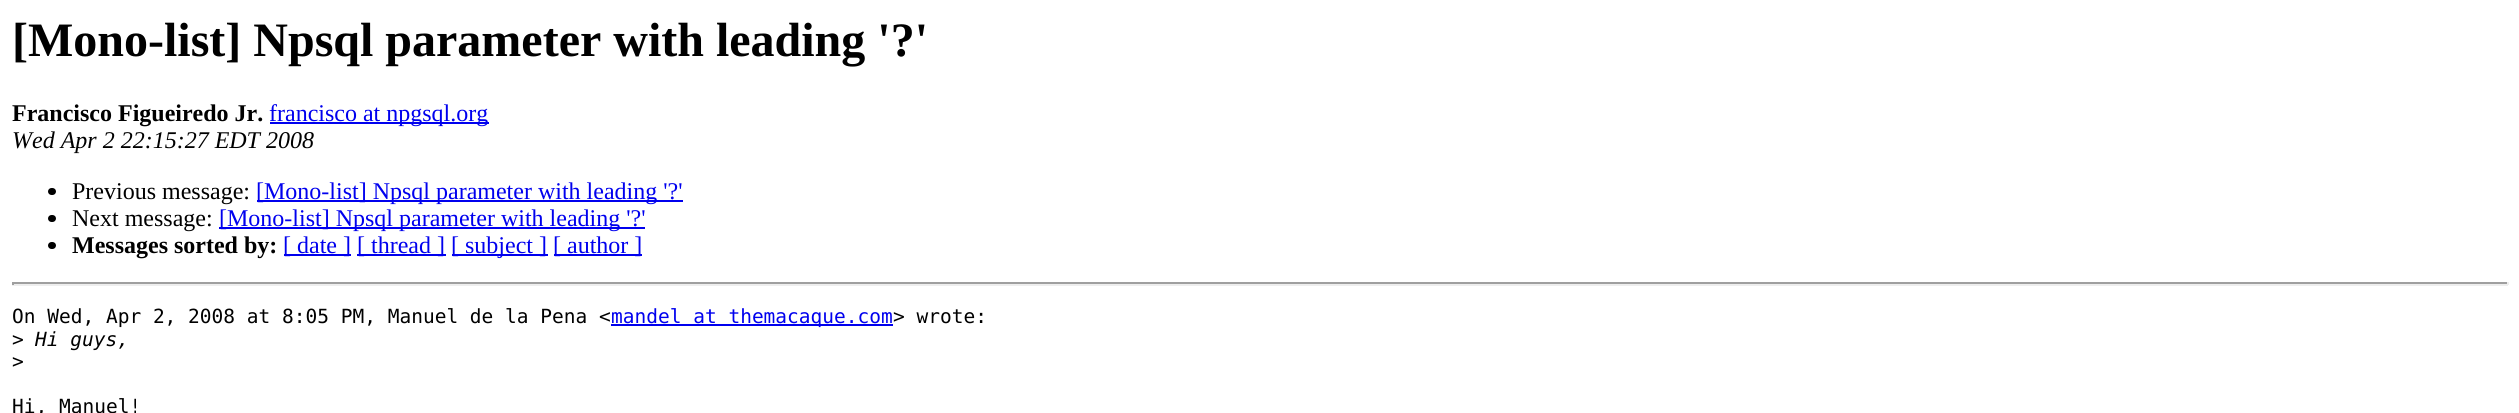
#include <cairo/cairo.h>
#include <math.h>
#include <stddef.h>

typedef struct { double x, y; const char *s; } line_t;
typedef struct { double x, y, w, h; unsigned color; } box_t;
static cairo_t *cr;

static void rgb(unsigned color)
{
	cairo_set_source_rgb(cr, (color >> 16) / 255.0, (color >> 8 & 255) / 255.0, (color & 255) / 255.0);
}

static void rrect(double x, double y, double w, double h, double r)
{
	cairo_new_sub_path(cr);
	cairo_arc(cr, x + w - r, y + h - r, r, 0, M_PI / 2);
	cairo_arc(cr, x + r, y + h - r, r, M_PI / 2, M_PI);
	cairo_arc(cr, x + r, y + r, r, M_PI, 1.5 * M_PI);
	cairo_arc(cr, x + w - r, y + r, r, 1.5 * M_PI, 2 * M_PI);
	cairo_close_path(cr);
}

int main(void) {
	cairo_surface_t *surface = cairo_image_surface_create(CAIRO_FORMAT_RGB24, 2519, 413);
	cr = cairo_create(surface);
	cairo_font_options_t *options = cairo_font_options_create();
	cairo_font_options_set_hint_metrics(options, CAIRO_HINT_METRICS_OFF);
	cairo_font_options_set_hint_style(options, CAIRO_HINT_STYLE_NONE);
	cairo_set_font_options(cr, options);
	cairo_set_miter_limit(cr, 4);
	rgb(0xffffff);
	cairo_paint(cr);
	rgb(0x0000ee);
	cairo_rectangle(cr, 270, 122, 219, 2);
	cairo_fill(cr);
	rgb(0x000000);
	rrect(48, 188, 8, 7, 3.5);
	cairo_fill(cr);
	rgb(0x0000ee);
	cairo_rectangle(cr, 257, 200, 426, 2);
	cairo_fill(cr);
	rgb(0x000000);
	rrect(48, 215, 8, 7, 3.5);
	cairo_fill(cr);
	rgb(0x0000ee);
	cairo_rectangle(cr, 219, 227, 426, 2);
	cairo_fill(cr);
	rgb(0x000000);
	rrect(48, 242, 8, 7, 3.5);
	cairo_fill(cr);
	{
		static const box_t items[] = {
			{284, 254, 67, 2, 0x0000ee},
			{357, 254, 89, 2, 0x0000ee},
			{452, 254, 96, 2, 0x0000ee},
			{554, 254, 88, 2, 0x0000ee},
			{12, 282, 2496, 2, 0x9f9f9f},
			{2507, 282, 2, 3, 0xeeeeee},
			{12, 284, 2496, 2, 0xeeeeee},
			{12, 282, 2, 3, 0x9f9f9f},
			{611, 324, 282, 2, 0x0000ee},
		};
		for (size_t i = 0; i < sizeof items / sizeof *items; i++) {
			rgb(items[i].color);
			cairo_rectangle(cr, items[i].x, items[i].y, items[i].w, items[i].h);
			cairo_fill(cr);
		}
	}
	cairo_select_font_face(cr, "Liberation Serif", CAIRO_FONT_SLANT_NORMAL, CAIRO_FONT_WEIGHT_BOLD);
	cairo_set_font_size(cr, 48);
	rgb(0x000000);
	cairo_move_to(cr, 12, 56);
	cairo_show_text(cr, "[Mono-list] Npsql parameter with leading '?'");
	cairo_set_font_size(cr, 24);
	cairo_move_to(cr, 12, 121);
	cairo_show_text(cr, "Francisco Figueiredo Jr.");
	cairo_select_font_face(cr, "Liberation Serif", CAIRO_FONT_SLANT_NORMAL, CAIRO_FONT_WEIGHT_NORMAL);
	rgb(0x0000ee);
	cairo_move_to(cr, 269, 121);
	cairo_show_text(cr, "francisco at npgsql.org");
	cairo_select_font_face(cr, "Liberation Serif", CAIRO_FONT_SLANT_ITALIC, CAIRO_FONT_WEIGHT_NORMAL);
	rgb(0x000000);
	cairo_move_to(cr, 12, 148);
	cairo_show_text(cr, "Wed Apr 2 22:15:27 EDT 2008");
	cairo_select_font_face(cr, "Liberation Serif", CAIRO_FONT_SLANT_NORMAL, CAIRO_FONT_WEIGHT_NORMAL);
	cairo_move_to(cr, 72, 199);
	cairo_show_text(cr, "Previous message:");
	rgb(0x0000ee);
	cairo_move_to(cr, 256, 199);
	cairo_show_text(cr, "[Mono-list] Npsql parameter with leading '?'");
	rgb(0x000000);
	cairo_move_to(cr, 72, 226);
	cairo_show_text(cr, "Next message:");
	rgb(0x0000ee);
	cairo_move_to(cr, 219, 226);
	cairo_show_text(cr, "[Mono-list] Npsql parameter with leading '?'");
	cairo_select_font_face(cr, "Liberation Serif", CAIRO_FONT_SLANT_NORMAL, CAIRO_FONT_WEIGHT_BOLD);
	rgb(0x000000);
	cairo_move_to(cr, 72, 253);
	cairo_show_text(cr, "Messages sorted by:");
	cairo_select_font_face(cr, "Liberation Serif", CAIRO_FONT_SLANT_NORMAL, CAIRO_FONT_WEIGHT_NORMAL);
	rgb(0x0000ee);
	{
		static const line_t items[] = {
			{283, 253, "[ date ]"},
			{357, 253, "[ thread ]"},
			{451, 253, "[ subject ]"},
			{553, 253, "[ author ]"},
		};
		for (size_t i = 0; i < sizeof items / sizeof *items; i++) {
			cairo_move_to(cr, items[i].x, items[i].y);
			cairo_show_text(cr, items[i].s);
		}
	}
	cairo_select_font_face(cr, "DejaVu Sans Mono", CAIRO_FONT_SLANT_NORMAL, CAIRO_FONT_WEIGHT_NORMAL);
	cairo_set_font_size(cr, 19.5);
	rgb(0x000000);
	cairo_move_to(cr, 12, 323);
	cairo_show_text(cr, "On Wed, Apr 2, 2008 at 8:05 PM, Manuel de la Pena <");
	rgb(0x0000ee);
	cairo_move_to(cr, 611, 323);
	cairo_show_text(cr, "mandel at themacaque.com");
	rgb(0x000000);
	cairo_move_to(cr, 893, 323);
	cairo_show_text(cr, "> wrote:");
	cairo_move_to(cr, 12, 346);
	cairo_show_text(cr, ">");
	cairo_select_font_face(cr, "DejaVu Sans Mono", CAIRO_FONT_SLANT_ITALIC, CAIRO_FONT_WEIGHT_NORMAL);
	cairo_move_to(cr, 35, 346);
	cairo_show_text(cr, "Hi guys,");
	cairo_select_font_face(cr, "DejaVu Sans Mono", CAIRO_FONT_SLANT_NORMAL, CAIRO_FONT_WEIGHT_NORMAL);
	cairo_move_to(cr, 12, 368);
	cairo_show_text(cr, ">");
	cairo_move_to(cr, 12, 413);
	cairo_show_text(cr, "Hi, Manuel!");
	cairo_surface_write_to_png(surface, "page.png");
	cairo_font_options_destroy(options);
	cairo_destroy(cr);
	cairo_surface_destroy(surface);
	return 0;
}
